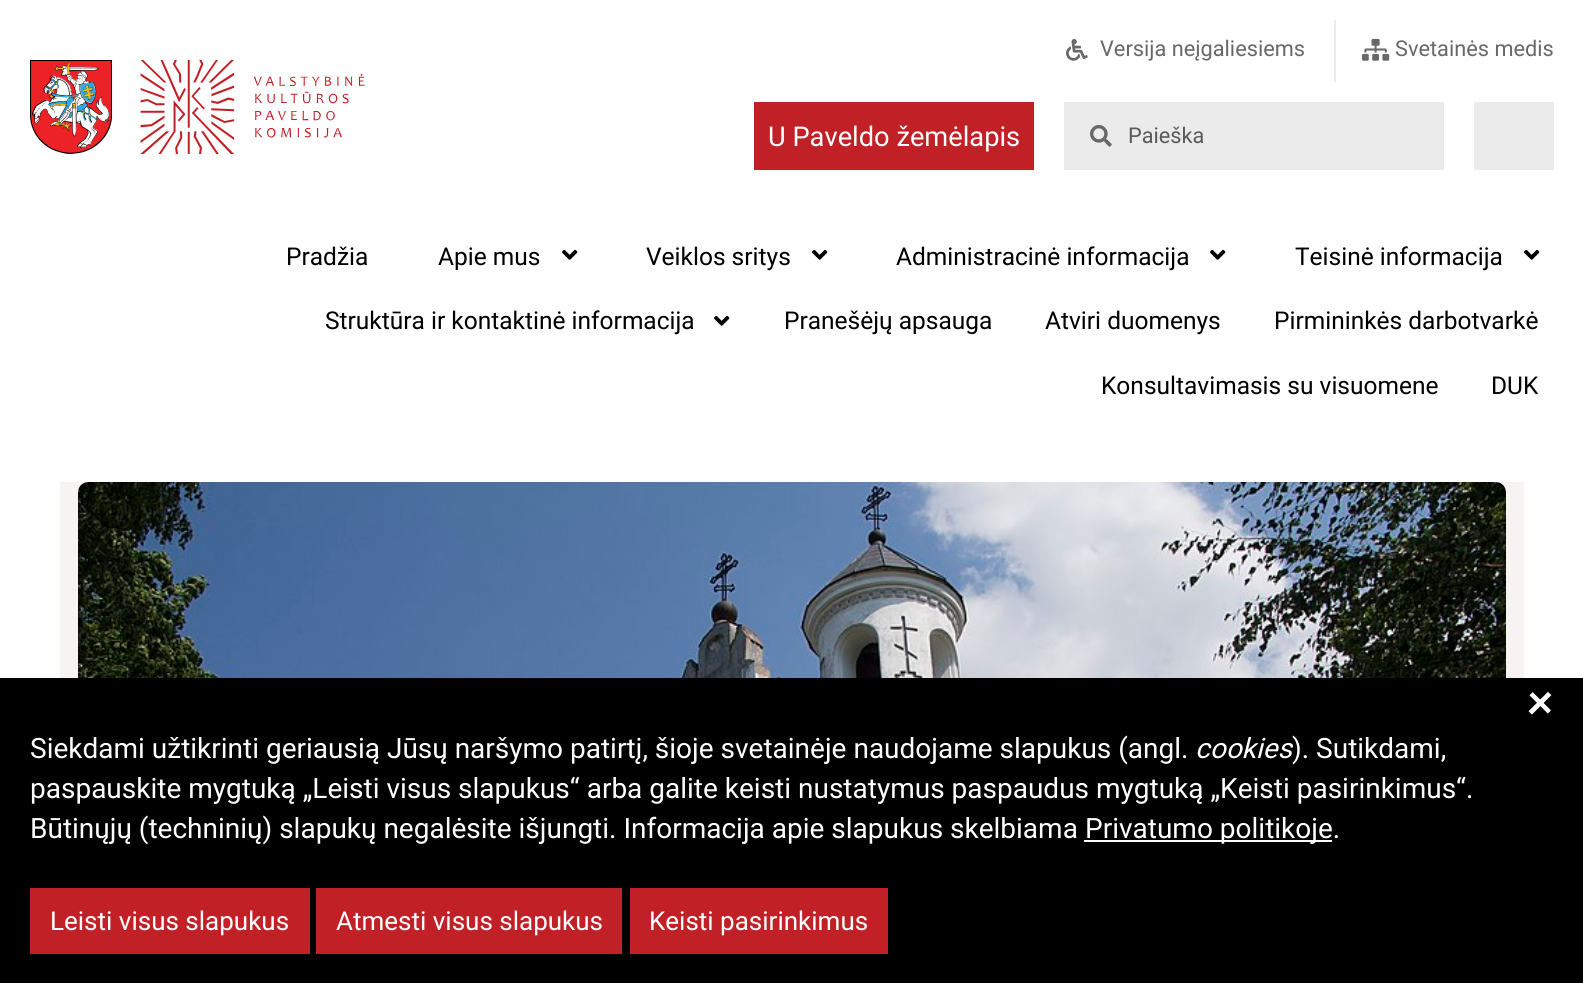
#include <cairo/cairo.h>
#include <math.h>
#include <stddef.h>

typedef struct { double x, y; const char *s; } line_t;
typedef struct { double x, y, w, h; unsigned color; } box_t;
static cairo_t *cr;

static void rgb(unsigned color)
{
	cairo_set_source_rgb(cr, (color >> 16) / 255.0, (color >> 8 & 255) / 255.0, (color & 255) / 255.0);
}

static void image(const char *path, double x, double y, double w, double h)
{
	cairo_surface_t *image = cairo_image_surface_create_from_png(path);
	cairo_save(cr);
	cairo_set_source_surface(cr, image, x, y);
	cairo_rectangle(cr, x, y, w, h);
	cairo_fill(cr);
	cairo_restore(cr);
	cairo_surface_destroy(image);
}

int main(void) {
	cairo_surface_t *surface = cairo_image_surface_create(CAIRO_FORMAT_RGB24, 1583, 983);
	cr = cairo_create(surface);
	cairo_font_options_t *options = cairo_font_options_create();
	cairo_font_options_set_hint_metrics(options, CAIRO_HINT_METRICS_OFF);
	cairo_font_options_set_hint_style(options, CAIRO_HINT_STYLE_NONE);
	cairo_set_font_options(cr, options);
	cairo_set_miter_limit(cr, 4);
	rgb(0xffffff);
	cairo_paint(cr);
	image("img/1.png", 30, 60, 82, 94);
	image("img/2.png", 140, 60, 225, 94);
	image("img/3.png", 1066, 39, 22, 22);
	rgb(0xebebeb);
	cairo_rectangle(cr, 1334, 20, 2, 62);
	cairo_fill(cr);
	image("img/4.png", 1362, 38, 28, 23);
	rgb(0xc12026);
	cairo_rectangle(cr, 754, 102, 280, 68);
	cairo_fill(cr);
	rgb(0xebebeb);
	cairo_rectangle(cr, 1064, 102, 380, 68);
	cairo_fill(cr);
	image("img/5.png", 1090, 125, 22, 22);
	cairo_rectangle(cr, 1474, 102, 80, 68);
	cairo_fill(cr);
	image("img/6.png", 562, 249, 16, 11);
	image("img/6.png", 812, 249, 16, 11);
	image("img/6.png", 1210, 249, 16, 11);
	image("img/6.png", 1524, 249, 16, 11);
	image("img/6.png", 714, 315, 16, 11);
	rgb(0xf7f3f3);
	cairo_rectangle(cr, 60, 482, 1464, 196);
	cairo_fill(cr);
	image("img/7.png", 78, 482, 1428, 196);
	{
		static const box_t items[] = {
			{0, 678, 1583, 305, 0x000000},
			{1084, 840, 248, 2, 0xffffff},
			{30, 888, 280, 66, 0xc12026},
			{316, 888, 306, 66, 0xc12026},
			{630, 888, 258, 66, 0xc12026},
		};
		for (size_t i = 0; i < sizeof items / sizeof *items; i++) {
			rgb(items[i].color);
			cairo_rectangle(cr, items[i].x, items[i].y, items[i].w, items[i].h);
			cairo_fill(cr);
		}
	}
	cairo_select_font_face(cr, "Roboto", CAIRO_FONT_SLANT_NORMAL, CAIRO_FONT_WEIGHT_NORMAL);
	cairo_set_font_size(cr, 21.75);
	rgb(0x686868);
	cairo_move_to(cr, 1100, 56);
	cairo_show_text(cr, "Versija neįgaliesiems");
	cairo_move_to(cr, 1395, 56);
	cairo_show_text(cr, "Svetainės medis");
	cairo_set_font_size(cr, 27.25);
	rgb(0xffffff);
	cairo_move_to(cr, 768, 146);
	cairo_show_text(cr, "U Paveldo žemėlapis");
	cairo_set_font_size(cr, 21.75);
	rgb(0x5a5a5a);
	cairo_move_to(cr, 1128, 143);
	cairo_show_text(cr, "Paieška");
	cairo_set_font_size(cr, 24.5);
	rgb(0x000000);
	{
		static const line_t items[] = {
			{286, 265, "Pradžia"},
			{438, 265, "Apie mus"},
			{646, 265, "Veiklos sritys"},
			{896, 265, "Administracinė informacija"},
			{1295, 265, "Teisinė informacija"},
			{325, 329, "Struktūra ir kontaktinė informacija"},
			{784, 329, "Pranešėjų apsauga"},
			{1045, 329, "Atviri duomenys"},
			{1274, 329, "Pirmininkės darbotvarkė"},
			{1101, 394, "Konsultavimasis su visuomene"},
			{1491, 394, "DUK"},
		};
		for (size_t i = 0; i < sizeof items / sizeof *items; i++) {
			cairo_move_to(cr, items[i].x, items[i].y);
			cairo_show_text(cr, items[i].s);
		}
	}
	cairo_set_font_size(cr, 53);
	rgb(0xffffff);
	cairo_save(cr);
	cairo_translate(cr, 1517, 705);
	cairo_rotate(cr, 45 * M_PI / 180);
	cairo_move_to(cr, 0, 0);
	cairo_show_text(cr, "+");
	cairo_restore(cr);
	cairo_set_font_size(cr, 28);
	cairo_move_to(cr, 30, 758);
	cairo_show_text(cr, "Siekdami užtikrinti geriausią Jūsų naršymo patirtį, šioje svetainėje naudojame slapukus (angl.");
	cairo_select_font_face(cr, "Roboto", CAIRO_FONT_SLANT_ITALIC, CAIRO_FONT_WEIGHT_NORMAL);
	cairo_move_to(cr, 1195, 758);
	cairo_show_text(cr, "cookies");
	cairo_select_font_face(cr, "Roboto", CAIRO_FONT_SLANT_NORMAL, CAIRO_FONT_WEIGHT_NORMAL);
	{
		static const line_t items[] = {
			{1292, 758, "). Sutikdami,"},
			{30, 798, "paspauskite mygtuką „Leisti visus slapukus“ arba galite keisti nustatymus paspaudus mygtuką „Keisti pasirinkimus“."},
			{30, 838, "Būtinųjų (techninių) slapukų negalėsite išjungti. Informacija apie slapukus skelbiama"},
			{1085, 838, "Privatumo politikoje."},
		};
		for (size_t i = 0; i < sizeof items / sizeof *items; i++) {
			cairo_move_to(cr, items[i].x, items[i].y);
			cairo_show_text(cr, items[i].s);
		}
	}
	cairo_set_font_size(cr, 26);
	{
		static const line_t items[] = {
			{50, 930, "Leisti visus slapukus"},
			{336, 930, "Atmesti visus slapukus"},
			{649, 930, "Keisti pasirinkimus"},
		};
		for (size_t i = 0; i < sizeof items / sizeof *items; i++) {
			cairo_move_to(cr, items[i].x, items[i].y);
			cairo_show_text(cr, items[i].s);
		}
	}
	cairo_surface_write_to_png(surface, "page.png");
	cairo_font_options_destroy(options);
	cairo_destroy(cr);
	cairo_surface_destroy(surface);
	return 0;
}
